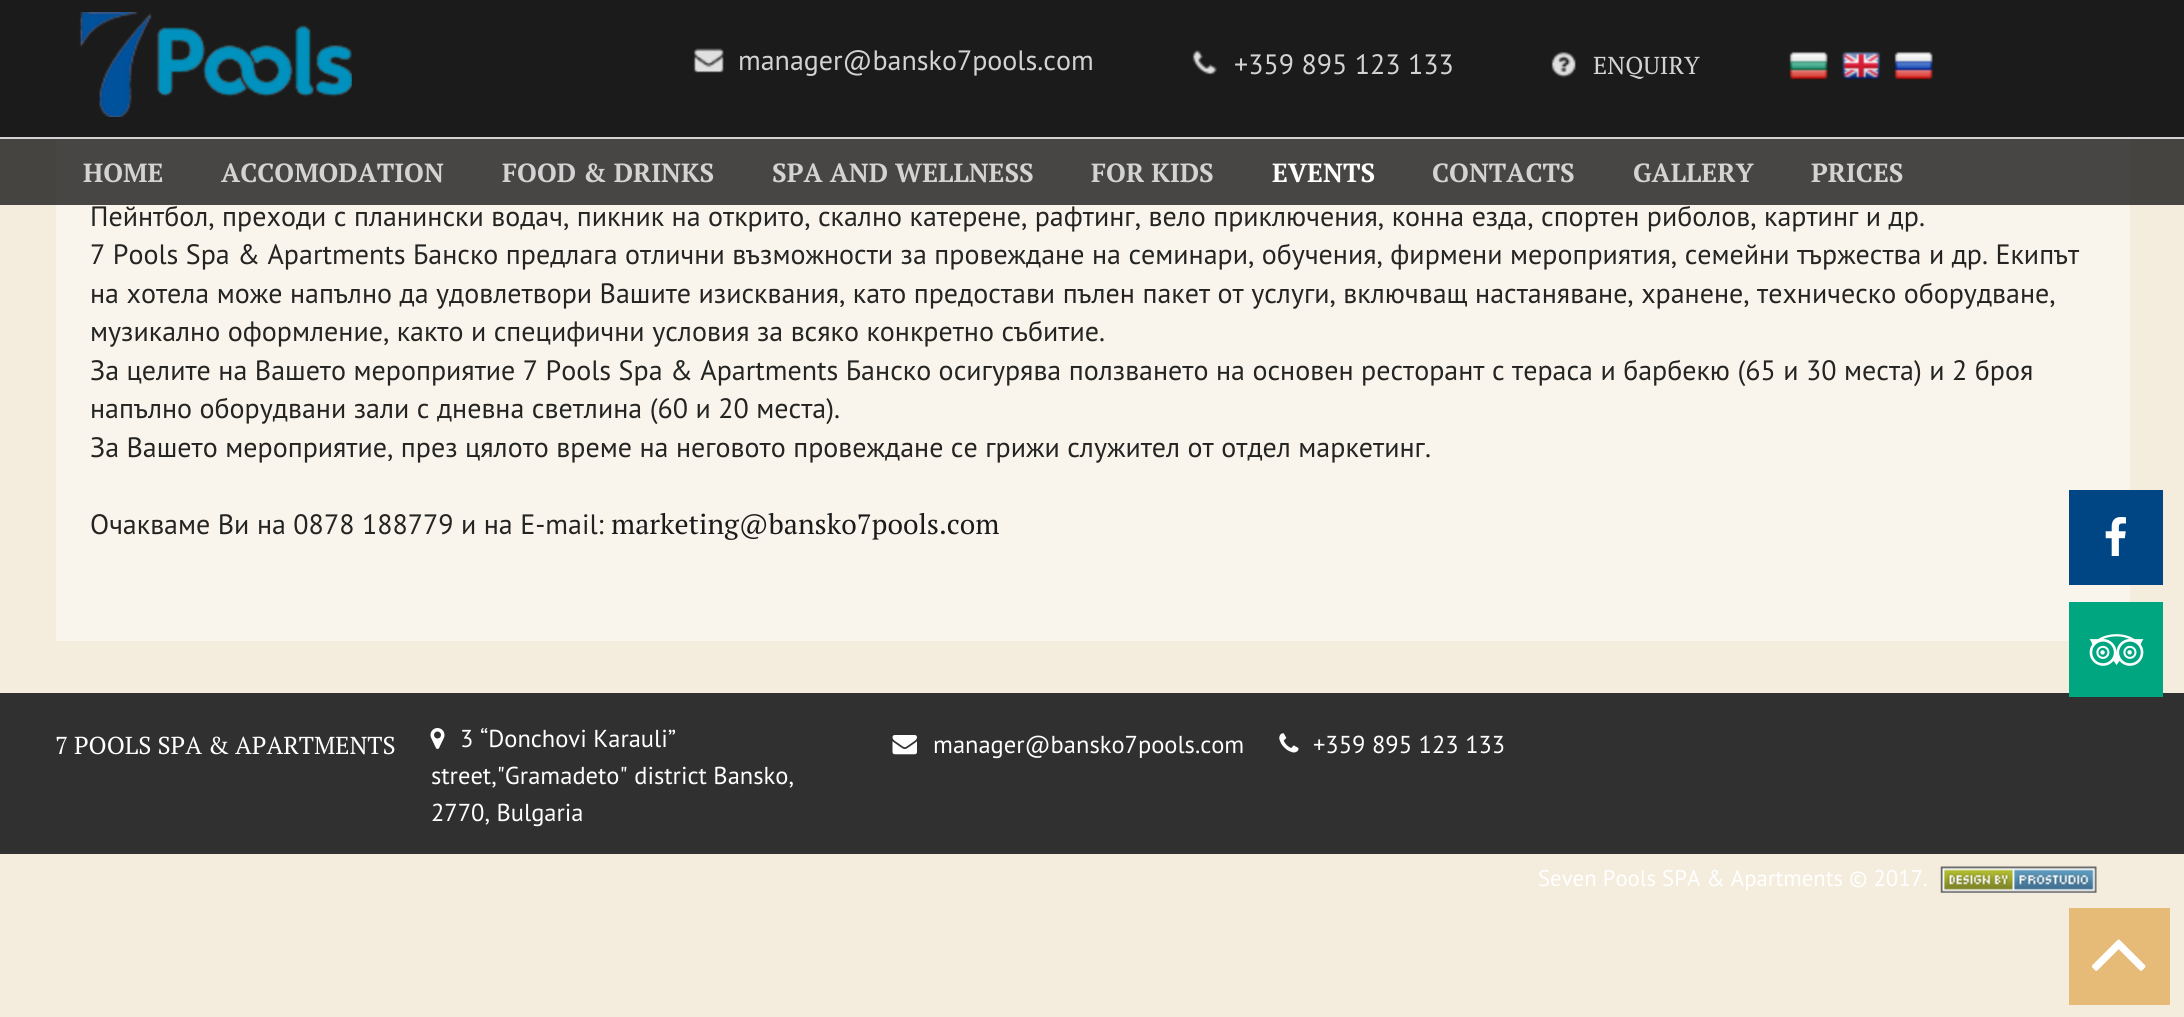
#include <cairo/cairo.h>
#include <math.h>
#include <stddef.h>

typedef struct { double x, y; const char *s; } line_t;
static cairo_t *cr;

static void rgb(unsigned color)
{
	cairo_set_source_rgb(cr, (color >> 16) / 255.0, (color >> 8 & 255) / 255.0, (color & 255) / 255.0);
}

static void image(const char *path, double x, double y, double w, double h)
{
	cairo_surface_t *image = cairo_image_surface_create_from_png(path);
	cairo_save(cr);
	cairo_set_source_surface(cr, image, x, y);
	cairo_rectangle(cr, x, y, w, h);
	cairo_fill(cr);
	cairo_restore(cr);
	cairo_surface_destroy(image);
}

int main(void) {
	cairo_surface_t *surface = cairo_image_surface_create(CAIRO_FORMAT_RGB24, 2184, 1017);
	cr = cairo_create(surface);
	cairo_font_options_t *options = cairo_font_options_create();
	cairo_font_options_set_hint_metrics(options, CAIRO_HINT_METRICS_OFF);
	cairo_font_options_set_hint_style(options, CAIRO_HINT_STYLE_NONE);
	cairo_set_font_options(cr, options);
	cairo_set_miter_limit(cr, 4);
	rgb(0xf4eddd);
	cairo_paint(cr);
	rgb(0xf9f5ec);
	cairo_rectangle(cr, 56, 139, 2074, 502);
	cairo_fill(cr);
	cairo_set_source_rgba(cr, 0.106, 0.106, 0.106, 0.8);
	cairo_rectangle(cr, 0, 139, 2184, 66);
	cairo_fill(cr);
	rgb(0x1b1b1b);
	cairo_rectangle(cr, 0, 0, 2184, 137);
	cairo_fill(cr);
	rgb(0xd3d3d3);
	cairo_rectangle(cr, 0, 137, 2184, 2);
	cairo_fill(cr);
	image("img/1.png", 79, 12, 273, 105);
	image("img/2.png", 693, 48, 31, 25);
	image("img/3.png", 1192, 50, 25, 25);
	image("img/4.png", 1551, 51, 25, 27);
	image("img/5.png", 1789, 51, 39, 29);
	image("img/6.png", 1841, 51, 40, 29);
	image("img/7.png", 1894, 51, 39, 29);
	rgb(0x004685);
	cairo_rectangle(cr, 2069, 490, 94, 95);
	cairo_fill(cr);
	image("img/8.png", 2105, 517, 21, 39);
	rgb(0x303030);
	cairo_rectangle(cr, 0, 693, 2184, 161);
	cairo_fill(cr);
	rgb(0x00a680);
	cairo_rectangle(cr, 2069, 602, 94, 95);
	cairo_fill(cr);
	image("img/9.png", 2089, 634, 55, 32);
	image("img/10.png", 430, 728, 15, 21);
	image("img/11.png", 892, 735, 25, 20);
	image("img/12.png", 1279, 733, 20, 20);
	image("img/13.png", 1940, 866, 157, 27);
	rgb(0xe6bb77);
	cairo_rectangle(cr, 2069, 908, 101, 97);
	cairo_fill(cr);
	image("img/14.png", 2091, 939, 55, 32);
	cairo_select_font_face(cr, "PT Sans", CAIRO_FONT_SLANT_NORMAL, CAIRO_FONT_WEIGHT_NORMAL);
	cairo_set_font_size(cr, 28);
	rgb(0xd3d3d3);
	cairo_move_to(cr, 738, 70);
	cairo_show_text(cr, "manager@bansko7pools.com");
	cairo_move_to(cr, 1234, 74);
	cairo_show_text(cr, "+359 895 123 133");
	cairo_select_font_face(cr, "PT Serif", CAIRO_FONT_SLANT_NORMAL, CAIRO_FONT_WEIGHT_NORMAL);
	cairo_set_font_size(cr, 24.5);
	cairo_move_to(cr, 1593, 74);
	cairo_show_text(cr, "ENQUIRY");
	cairo_select_font_face(cr, "PT Serif", CAIRO_FONT_SLANT_NORMAL, CAIRO_FONT_WEIGHT_BOLD);
	cairo_set_font_size(cr, 26.25);
	{
		static const line_t items[] = {
			{83, 182, "HOME"},
			{221, 182, "ACCOMODATION"},
			{502, 182, "FOOD & DRINKS"},
			{772, 182, "SPA AND WELLNESS"},
			{1091, 182, "FOR KIDS"},
		};
		for (size_t i = 0; i < sizeof items / sizeof *items; i++) {
			cairo_move_to(cr, items[i].x, items[i].y);
			cairo_show_text(cr, items[i].s);
		}
	}
	rgb(0xffffff);
	cairo_move_to(cr, 1272, 182);
	cairo_show_text(cr, "EVENTS");
	rgb(0xd3d3d3);
	{
		static const line_t items[] = {
			{1432, 182, "CONTACTS"},
			{1633, 182, "GALLERY"},
			{1811, 182, "PRICES"},
		};
		for (size_t i = 0; i < sizeof items / sizeof *items; i++) {
			cairo_move_to(cr, items[i].x, items[i].y);
			cairo_show_text(cr, items[i].s);
		}
	}
	cairo_select_font_face(cr, "PT Sans", CAIRO_FONT_SLANT_NORMAL, CAIRO_FONT_WEIGHT_NORMAL);
	cairo_set_font_size(cr, 28);
	rgb(0x242422);
	{
		static const line_t items[] = {
			{90, 226, "Пейнтбол, преходи с планински водач, пикник на открито, скално катерене, рафтинг, вело приключения, конна езда, спортен риболов, картинг и др."},
			{90, 264, "7 Pools Spa & Apartments Банско предлага отлични възможности за провеждане на семинари, обучения, фирмени мероприятия, семейни тържества и др. Екипът"},
			{90, 303, "на хотела може напълно да удовлетвори Вашите изисквания, като предостави пълен пакет от услуги, включващ настаняване, хранене, техническо оборудване,"},
			{90, 341, "музикално оформление, както и специфични условия за всяко конкретно събитие."},
			{90, 380, "За целите на Вашето мероприятие 7 Pools Spa & Apartments Банско осигурява ползването на основен ресторант с тераса и барбекю (65 и 30 места) и 2 броя"},
			{90, 418, "напълно оборудвани зали с дневна светлина (60 и 20 места)."},
			{90, 457, "За Вашето мероприятие, през цялото време на неговото провеждане се грижи служител от отдел маркетинг."},
			{90, 534, "Очакваме Ви на 0878 188779 и на E-mail:"},
		};
		for (size_t i = 0; i < sizeof items / sizeof *items; i++) {
			cairo_move_to(cr, items[i].x, items[i].y);
			cairo_show_text(cr, items[i].s);
		}
	}
	cairo_select_font_face(cr, "PT Serif", CAIRO_FONT_SLANT_NORMAL, CAIRO_FONT_WEIGHT_NORMAL);
	rgb(0x1b1b1b);
	cairo_move_to(cr, 611, 534);
	cairo_show_text(cr, "marketing@bansko7pools.com");
	cairo_set_font_size(cr, 24.5);
	rgb(0xffffff);
	cairo_move_to(cr, 55, 754);
	cairo_show_text(cr, "7 POOLS SPA & APARTMENTS");
	cairo_select_font_face(cr, "PT Sans", CAIRO_FONT_SLANT_NORMAL, CAIRO_FONT_WEIGHT_NORMAL);
	{
		static const line_t items[] = {
			{460, 747, "3 “Donchovi Karauli”"},
			{431, 784, "street,\"Gramadeto\" district Bansko,"},
			{431, 821, "2770, Bulgaria"},
			{933, 753, "manager@bansko7pools.com"},
			{1313, 753, "+359 895 123 133"},
		};
		for (size_t i = 0; i < sizeof items / sizeof *items; i++) {
			cairo_move_to(cr, items[i].x, items[i].y);
			cairo_show_text(cr, items[i].s);
		}
	}
	cairo_set_font_size(cr, 22.75);
	cairo_move_to(cr, 1538, 886);
	cairo_show_text(cr, "Seven Pools SPA & Apartments © 2017.");
	cairo_surface_write_to_png(surface, "page.png");
	cairo_font_options_destroy(options);
	cairo_destroy(cr);
	cairo_surface_destroy(surface);
	return 0;
}
